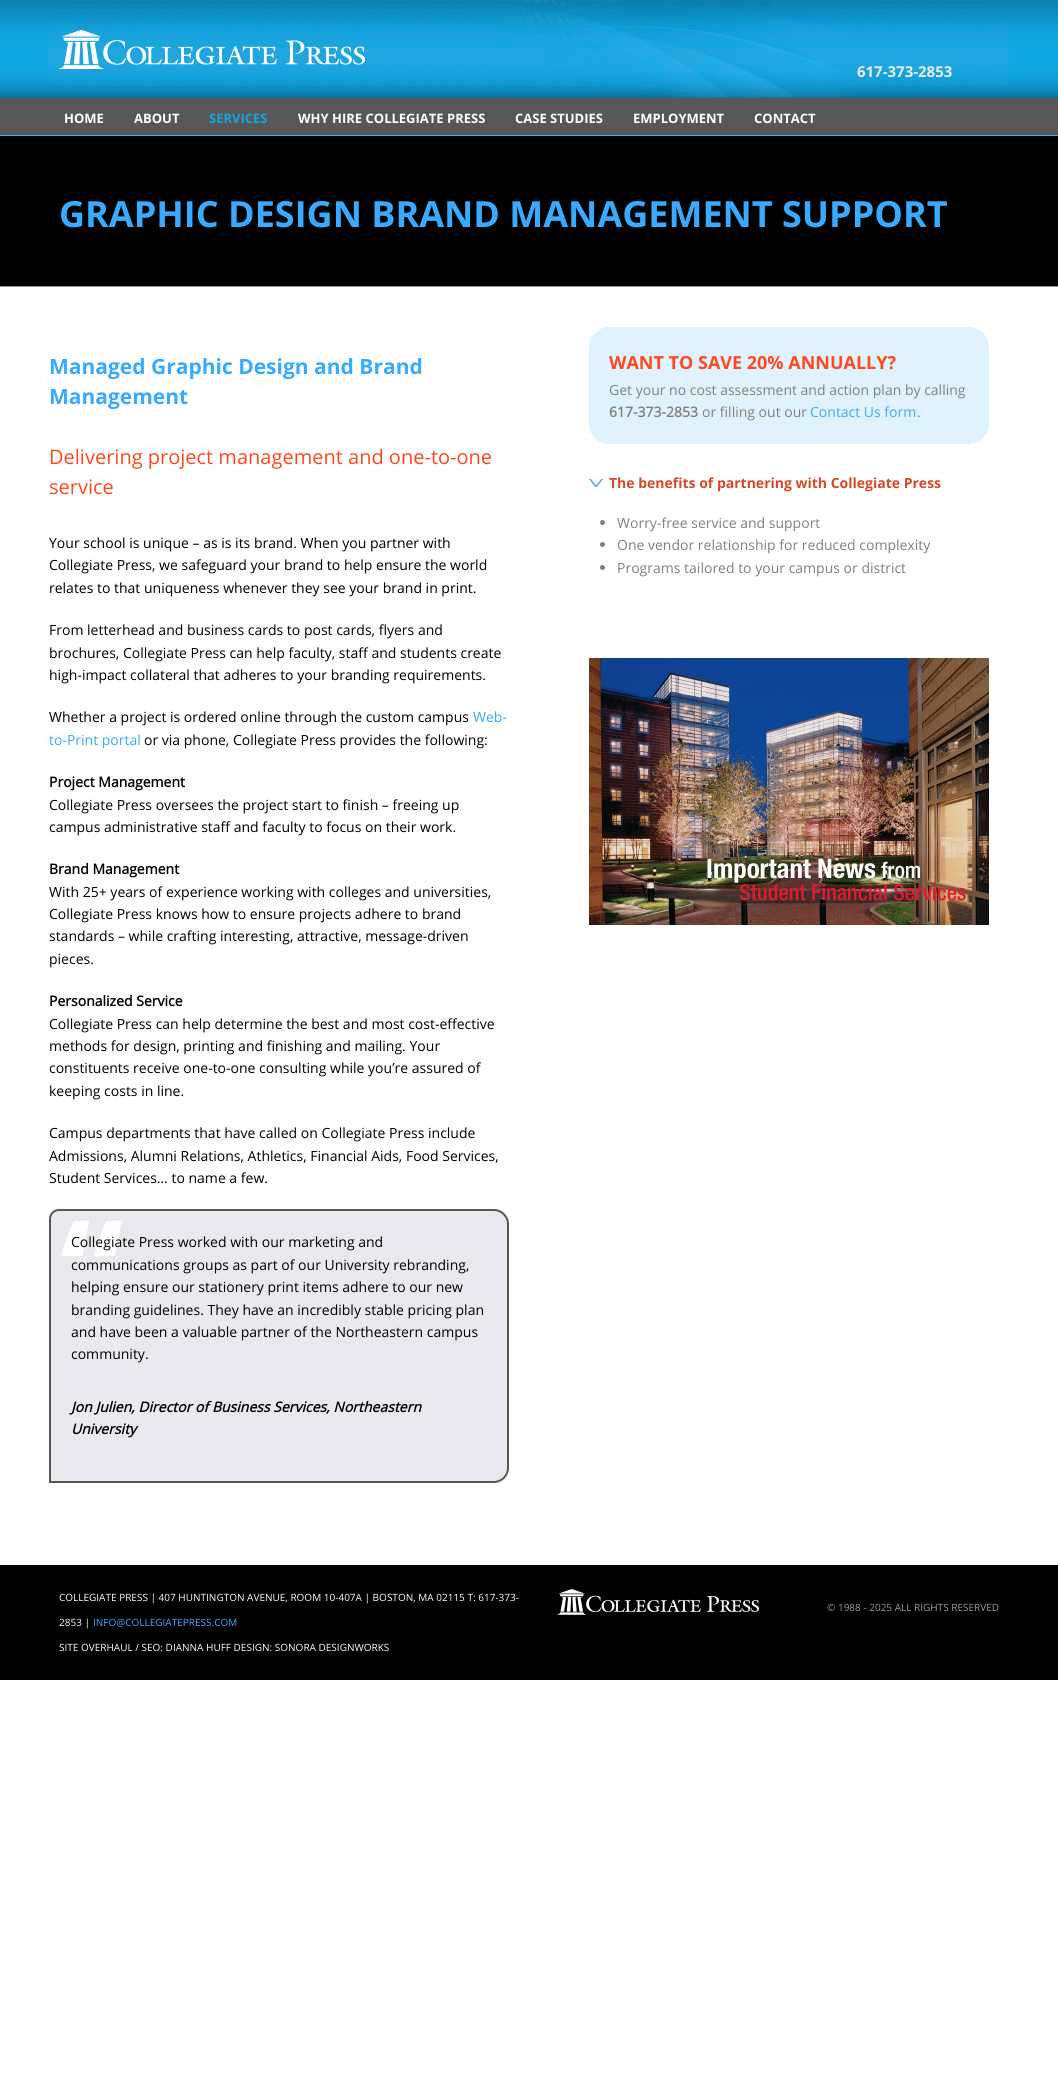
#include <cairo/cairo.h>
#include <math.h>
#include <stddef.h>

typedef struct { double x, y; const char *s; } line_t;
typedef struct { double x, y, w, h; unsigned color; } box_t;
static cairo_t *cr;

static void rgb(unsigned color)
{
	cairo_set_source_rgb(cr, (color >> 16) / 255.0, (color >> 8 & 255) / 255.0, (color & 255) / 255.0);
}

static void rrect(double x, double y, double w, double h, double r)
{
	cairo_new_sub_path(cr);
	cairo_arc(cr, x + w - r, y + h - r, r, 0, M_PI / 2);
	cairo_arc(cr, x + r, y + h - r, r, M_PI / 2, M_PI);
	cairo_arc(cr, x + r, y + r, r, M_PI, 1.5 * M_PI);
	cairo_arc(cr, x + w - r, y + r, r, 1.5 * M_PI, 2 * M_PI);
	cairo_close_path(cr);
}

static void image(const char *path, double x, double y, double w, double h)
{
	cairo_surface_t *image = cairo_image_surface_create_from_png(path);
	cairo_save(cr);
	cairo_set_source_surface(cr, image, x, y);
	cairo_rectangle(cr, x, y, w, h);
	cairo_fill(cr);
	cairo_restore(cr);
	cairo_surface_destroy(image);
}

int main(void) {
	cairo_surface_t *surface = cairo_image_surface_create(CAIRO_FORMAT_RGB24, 1058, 2088);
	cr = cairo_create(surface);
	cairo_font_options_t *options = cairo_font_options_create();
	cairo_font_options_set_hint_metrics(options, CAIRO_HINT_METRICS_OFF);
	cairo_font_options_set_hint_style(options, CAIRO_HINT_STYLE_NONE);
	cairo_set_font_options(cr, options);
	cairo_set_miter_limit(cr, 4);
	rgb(0xffffff);
	cairo_paint(cr);
	image("img/1.png", 0, 0, 1058, 98);
	image("img/2.png", 49, 0, 960, 98);
	image("img/3.png", 59, 30, 306, 39);
	{
		static const box_t items[] = {
			{0, 98, 1058, 37, 0x575757},
			{0, 135, 1058, 1, 0x38aaff},
			{0, 136, 1058, 150, 0x000000},
			{0, 286, 1058, 1, 0x919191},
		};
		for (size_t i = 0; i < sizeof items / sizeof *items; i++) {
			rgb(items[i].color);
			cairo_rectangle(cr, items[i].x, items[i].y, items[i].w, items[i].h);
			cairo_fill(cr);
		}
	}
	rgb(0xe9eaee);
	cairo_new_path(cr);
	cairo_move_to(cr, 59, 1209);
	cairo_line_to(cr, 494, 1209);
	cairo_curve_to(cr, 502.5, 1209, 509, 1215.5, 509, 1224);
	cairo_line_to(cr, 509, 1468);
	cairo_curve_to(cr, 509, 1476.5, 502.5, 1483, 494, 1483);
	cairo_line_to(cr, 49, 1483);
	cairo_line_to(cr, 49, 1219);
	cairo_curve_to(cr, 49, 1213.5, 53.5, 1209, 59, 1209);
	cairo_close_path(cr);
	cairo_fill(cr);
	image("img/4.png", 61, 1221, 61, 35);
	cairo_new_path(cr);
	cairo_move_to(cr, 59, 1210);
	cairo_line_to(cr, 494, 1210);
	cairo_curve_to(cr, 501.5, 1210, 508, 1216.5, 508, 1224);
	cairo_line_to(cr, 508, 1468);
	cairo_curve_to(cr, 508, 1475.5, 501.5, 1482, 494, 1482);
	cairo_line_to(cr, 50, 1482);
	cairo_line_to(cr, 50, 1219);
	cairo_curve_to(cr, 50, 1214, 54, 1210, 59, 1210);
	cairo_close_path(cr);
	rgb(0x575757);
	cairo_stroke(cr);
	rgb(0xe1f2ff);
	rrect(589, 327, 400, 117, 20);
	cairo_fill(cr);
	image("img/5.png", 589, 478, 14, 9);
	rgb(0x808080);
	cairo_arc(cr, 602.5, 522.5, 2.5, 0, 2 * M_PI);
	cairo_fill(cr);
	cairo_arc(cr, 602.5, 544.5, 2.5, 0, 2 * M_PI);
	cairo_fill(cr);
	cairo_arc(cr, 602.5, 567.5, 2.5, 0, 2 * M_PI);
	cairo_fill(cr);
	image("img/6.png", 589, 655, 400, 272);
	rgb(0x000000);
	cairo_rectangle(cr, 0, 1565, 1058, 115);
	cairo_fill(cr);
	image("img/7.png", 557, 1589, 202, 26);
	cairo_select_font_face(cr, "Open Sans", CAIRO_FONT_SLANT_NORMAL, CAIRO_FONT_WEIGHT_BOLD);
	cairo_set_font_size(cr, 15);
	rgb(0xececec);
	cairo_move_to(cr, 857, 77);
	cairo_show_text(cr, "617-373-2853");
	cairo_set_font_size(cr, 13);
	rgb(0xffffff);
	cairo_move_to(cr, 64, 123);
	cairo_show_text(cr, "HOME");
	cairo_move_to(cr, 134, 123);
	cairo_show_text(cr, "ABOUT");
	rgb(0x10a7e3);
	cairo_move_to(cr, 209, 123);
	cairo_show_text(cr, "SERVICES");
	rgb(0xffffff);
	{
		static const line_t items[] = {
			{298, 123, "WHY HIRE COLLEGIATE PRESS"},
			{515, 123, "CASE STUDIES"},
			{633, 123, "EMPLOYMENT"},
			{754, 123, "CONTACT"},
		};
		for (size_t i = 0; i < sizeof items / sizeof *items; i++) {
			cairo_move_to(cr, items[i].x, items[i].y);
			cairo_show_text(cr, items[i].s);
		}
	}
	cairo_set_font_size(cr, 36);
	rgb(0x38aaff);
	cairo_move_to(cr, 59, 227);
	cairo_show_text(cr, "GRAPHIC DESIGN BRAND MANAGEMENT SUPPORT");
	cairo_set_font_size(cr, 21);
	cairo_move_to(cr, 49, 374);
	cairo_show_text(cr, "Managed Graphic Design and Brand");
	cairo_move_to(cr, 49, 404);
	cairo_show_text(cr, "Management");
	cairo_select_font_face(cr, "Open Sans", CAIRO_FONT_SLANT_NORMAL, CAIRO_FONT_WEIGHT_NORMAL);
	cairo_set_font_size(cr, 20);
	rgb(0xff481d);
	cairo_move_to(cr, 49, 464);
	cairo_show_text(cr, "Delivering project management and one-to-one");
	cairo_move_to(cr, 49, 494);
	cairo_show_text(cr, "service");
	cairo_set_font_size(cr, 14);
	rgb(0x000000);
	{
		static const line_t items[] = {
			{49, 548, "Your school is unique – as is its brand. When you partner with"},
			{49, 570, "Collegiate Press, we safeguard your brand to help ensure the world"},
			{49, 593, "relates to that uniqueness whenever they see your brand in print."},
			{49, 635, "From letterhead and business cards to post cards, flyers and"},
			{49, 658, "brochures, Collegiate Press can help faculty, staff and students create"},
			{49, 680, "high-impact collateral that adheres to your branding requirements."},
			{49, 722, "Whether a project is ordered online through the custom campus"},
		};
		for (size_t i = 0; i < sizeof items / sizeof *items; i++) {
			cairo_move_to(cr, items[i].x, items[i].y);
			cairo_show_text(cr, items[i].s);
		}
	}
	rgb(0x38aaff);
	cairo_move_to(cr, 473, 722);
	cairo_show_text(cr, "Web-");
	cairo_move_to(cr, 49, 745);
	cairo_show_text(cr, "to-Print portal");
	rgb(0x000000);
	cairo_move_to(cr, 144, 745);
	cairo_show_text(cr, "or via phone, Collegiate Press provides the following:");
	cairo_select_font_face(cr, "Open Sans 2", CAIRO_FONT_SLANT_NORMAL, CAIRO_FONT_WEIGHT_BOLD);
	cairo_move_to(cr, 49, 787);
	cairo_show_text(cr, "Project Management");
	cairo_select_font_face(cr, "Open Sans", CAIRO_FONT_SLANT_NORMAL, CAIRO_FONT_WEIGHT_NORMAL);
	cairo_move_to(cr, 49, 810);
	cairo_show_text(cr, "Collegiate Press oversees the project start to finish – freeing up");
	cairo_move_to(cr, 49, 832);
	cairo_show_text(cr, "campus administrative staff and faculty to focus on their work.");
	cairo_select_font_face(cr, "Open Sans 2", CAIRO_FONT_SLANT_NORMAL, CAIRO_FONT_WEIGHT_BOLD);
	cairo_move_to(cr, 49, 874);
	cairo_show_text(cr, "Brand Management");
	cairo_select_font_face(cr, "Open Sans", CAIRO_FONT_SLANT_NORMAL, CAIRO_FONT_WEIGHT_NORMAL);
	{
		static const line_t items[] = {
			{49, 897, "With 25+ years of experience working with colleges and universities,"},
			{49, 919, "Collegiate Press knows how to ensure projects adhere to brand"},
			{49, 941, "standards – while crafting interesting, attractive, message-driven"},
			{49, 964, "pieces."},
		};
		for (size_t i = 0; i < sizeof items / sizeof *items; i++) {
			cairo_move_to(cr, items[i].x, items[i].y);
			cairo_show_text(cr, items[i].s);
		}
	}
	cairo_select_font_face(cr, "Open Sans 2", CAIRO_FONT_SLANT_NORMAL, CAIRO_FONT_WEIGHT_BOLD);
	cairo_move_to(cr, 49, 1006);
	cairo_show_text(cr, "Personalized Service");
	cairo_select_font_face(cr, "Open Sans", CAIRO_FONT_SLANT_NORMAL, CAIRO_FONT_WEIGHT_NORMAL);
	{
		static const line_t items[] = {
			{49, 1029, "Collegiate Press can help determine the best and most cost-effective"},
			{49, 1051, "methods for design, printing and finishing and mailing. Your"},
			{49, 1073, "constituents receive one-to-one consulting while you’re assured of"},
			{49, 1096, "keeping costs in line."},
			{49, 1138, "Campus departments that have called on Collegiate Press include"},
			{49, 1161, "Admissions, Alumni Relations, Athletics, Financial Aids, Food Services,"},
			{49, 1183, "Student Services… to name a few."},
			{71, 1247, "Collegiate Press worked with our marketing and"},
			{71, 1270, "communications groups as part of our University rebranding,"},
			{71, 1292, "helping ensure our stationery print items adhere to our new"},
			{71, 1315, "branding guidelines. They have an incredibly stable pricing plan"},
			{71, 1337, "and have been a valuable partner of the Northeastern campus"},
			{71, 1359, "community."},
		};
		for (size_t i = 0; i < sizeof items / sizeof *items; i++) {
			cairo_move_to(cr, items[i].x, items[i].y);
			cairo_show_text(cr, items[i].s);
		}
	}
	cairo_select_font_face(cr, "Open Sans", CAIRO_FONT_SLANT_ITALIC, CAIRO_FONT_WEIGHT_BOLD);
	cairo_move_to(cr, 71, 1412);
	cairo_show_text(cr, "Jon Julien, Director of Business Services, Northeastern");
	cairo_move_to(cr, 71, 1434);
	cairo_show_text(cr, "University");
	cairo_select_font_face(cr, "Open Sans", CAIRO_FONT_SLANT_NORMAL, CAIRO_FONT_WEIGHT_BOLD);
	cairo_set_font_size(cr, 18);
	rgb(0xff481d);
	cairo_move_to(cr, 609, 369);
	cairo_show_text(cr, "WANT TO SAVE 20% ANNUALLY?");
	cairo_select_font_face(cr, "Open Sans", CAIRO_FONT_SLANT_NORMAL, CAIRO_FONT_WEIGHT_NORMAL);
	cairo_set_font_size(cr, 14);
	rgb(0x808080);
	cairo_move_to(cr, 609, 395);
	cairo_show_text(cr, "Get your no cost assessment and action plan by calling");
	cairo_select_font_face(cr, "Open Sans 2", CAIRO_FONT_SLANT_NORMAL, CAIRO_FONT_WEIGHT_BOLD);
	cairo_move_to(cr, 609, 417);
	cairo_show_text(cr, "617-373-2853");
	cairo_select_font_face(cr, "Open Sans", CAIRO_FONT_SLANT_NORMAL, CAIRO_FONT_WEIGHT_NORMAL);
	cairo_move_to(cr, 702, 417);
	cairo_show_text(cr, "or filling out our");
	rgb(0x38aaff);
	cairo_move_to(cr, 810, 417);
	cairo_show_text(cr, "Contact Us form");
	rgb(0x808080);
	cairo_move_to(cr, 917, 417);
	cairo_show_text(cr, ".");
	cairo_select_font_face(cr, "Open Sans", CAIRO_FONT_SLANT_NORMAL, CAIRO_FONT_WEIGHT_BOLD);
	rgb(0xd44929);
	cairo_move_to(cr, 609, 488);
	cairo_show_text(cr, "The benefits of partnering with Collegiate Press");
	cairo_select_font_face(cr, "Open Sans", CAIRO_FONT_SLANT_NORMAL, CAIRO_FONT_WEIGHT_NORMAL);
	rgb(0x808080);
	{
		static const line_t items[] = {
			{617, 528, "Worry-free service and support"},
			{617, 550, "One vendor relationship for reduced complexity"},
			{617, 573, "Programs tailored to your campus or district"},
		};
		for (size_t i = 0; i < sizeof items / sizeof *items; i++) {
			cairo_move_to(cr, items[i].x, items[i].y);
			cairo_show_text(cr, items[i].s);
		}
	}
	cairo_set_font_size(cr, 10);
	rgb(0xffffff);
	cairo_move_to(cr, 59, 1601);
	cairo_show_text(cr, "COLLEGIATE PRESS | 407 HUNTINGTON AVENUE, ROOM 10-407A | BOSTON, MA 02115 T: 617-373-");
	cairo_move_to(cr, 59, 1626);
	cairo_show_text(cr, "2853 |");
	rgb(0x38aaff);
	cairo_move_to(cr, 93, 1626);
	cairo_show_text(cr, "INFO@COLLEGIATEPRESS.COM");
	rgb(0xffffff);
	cairo_move_to(cr, 59, 1651);
	cairo_show_text(cr, "SITE OVERHAUL / SEO: DIANNA HUFF DESIGN: SONORA DESIGNWORKS");
	rgb(0x9c9c9c);
	cairo_move_to(cr, 827, 1611);
	cairo_show_text(cr, "© 1988 - 2025 ALL RIGHTS RESERVED");
	cairo_surface_write_to_png(surface, "page.png");
	cairo_font_options_destroy(options);
	cairo_destroy(cr);
	cairo_surface_destroy(surface);
	return 0;
}
